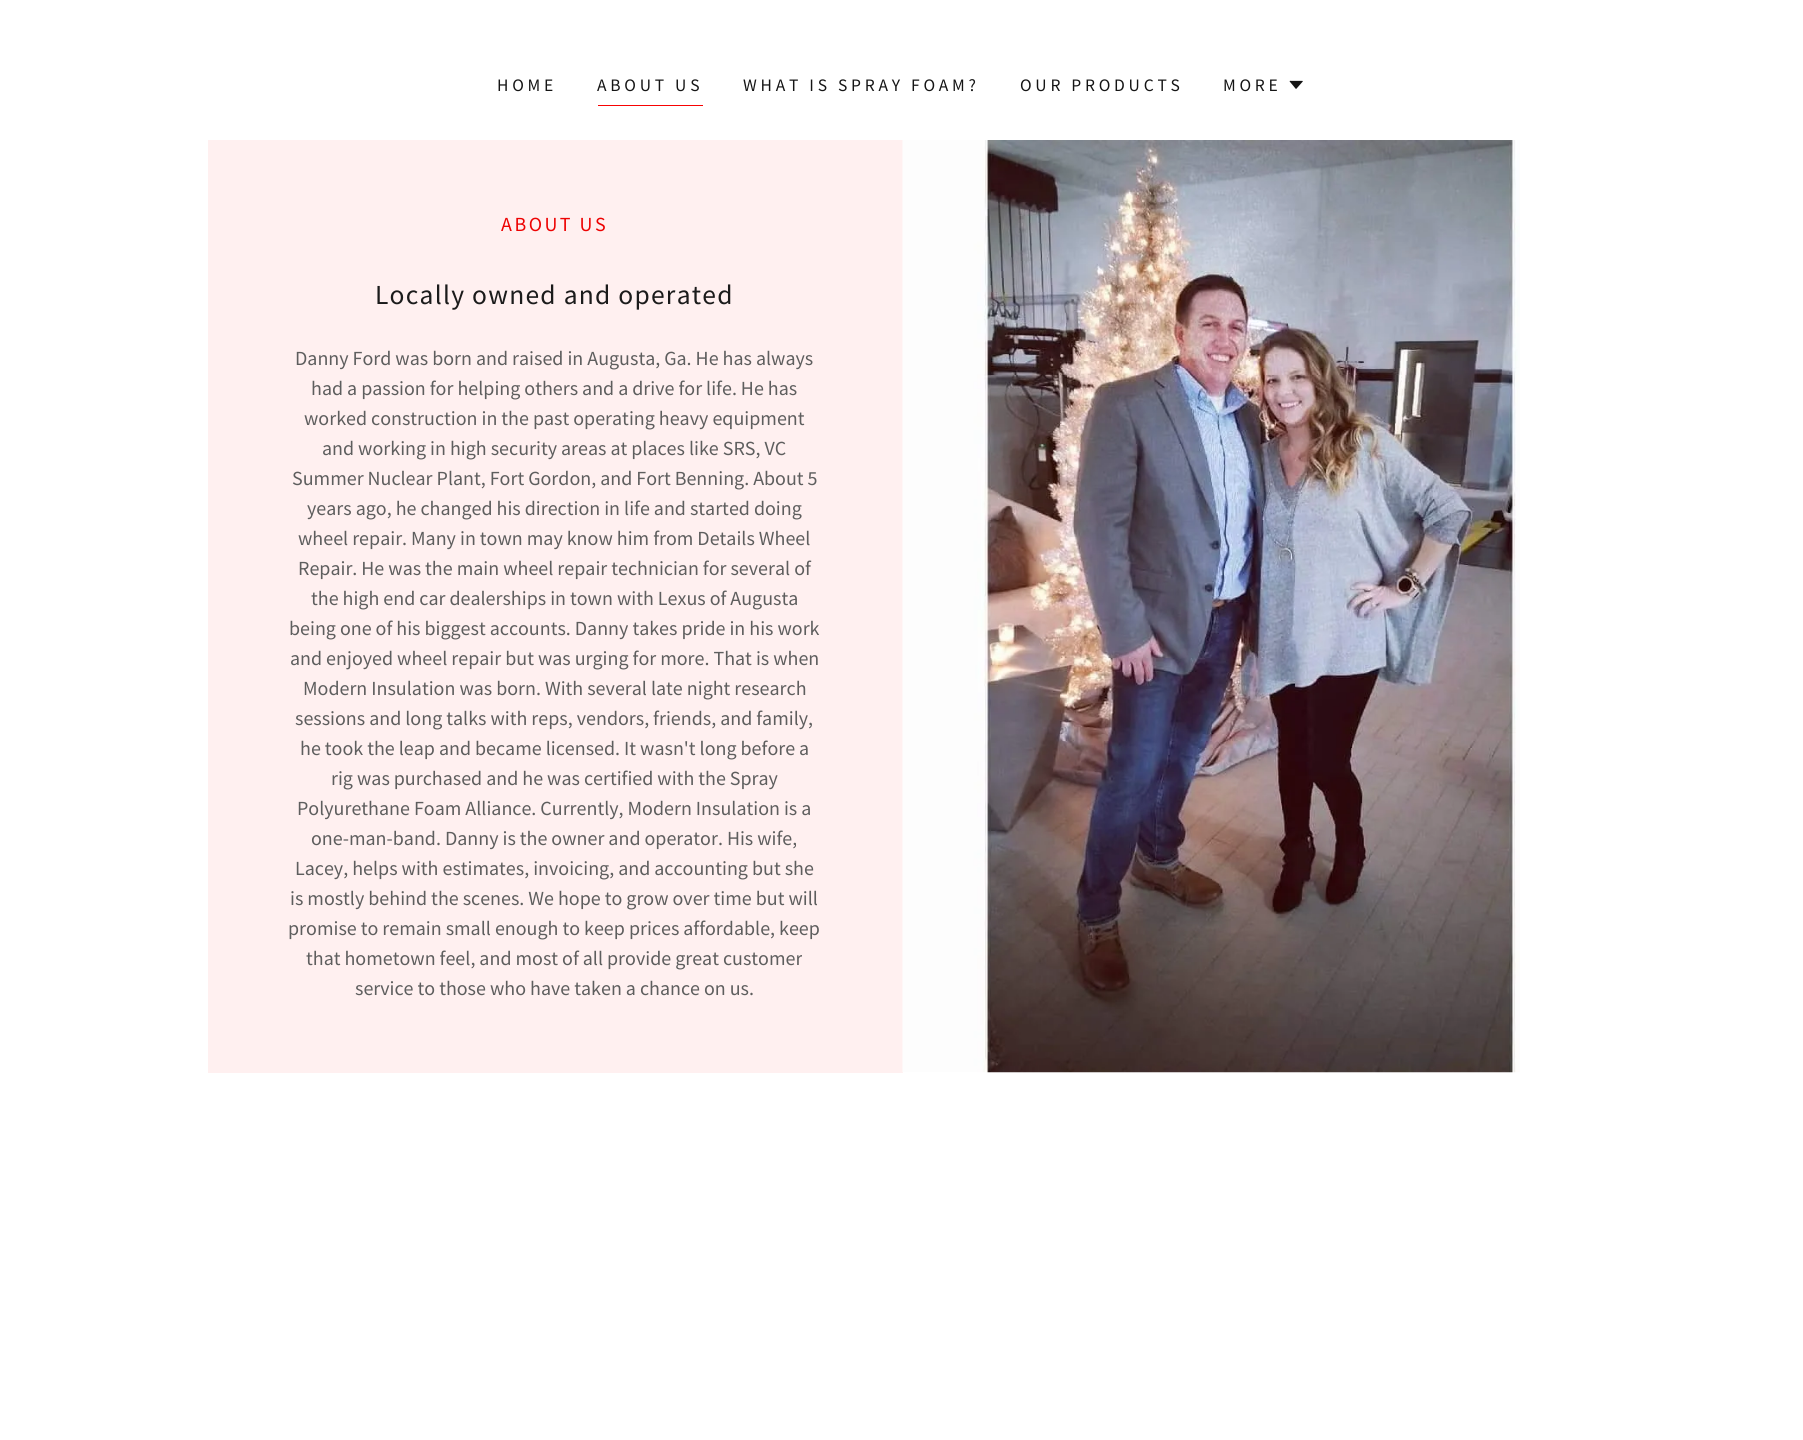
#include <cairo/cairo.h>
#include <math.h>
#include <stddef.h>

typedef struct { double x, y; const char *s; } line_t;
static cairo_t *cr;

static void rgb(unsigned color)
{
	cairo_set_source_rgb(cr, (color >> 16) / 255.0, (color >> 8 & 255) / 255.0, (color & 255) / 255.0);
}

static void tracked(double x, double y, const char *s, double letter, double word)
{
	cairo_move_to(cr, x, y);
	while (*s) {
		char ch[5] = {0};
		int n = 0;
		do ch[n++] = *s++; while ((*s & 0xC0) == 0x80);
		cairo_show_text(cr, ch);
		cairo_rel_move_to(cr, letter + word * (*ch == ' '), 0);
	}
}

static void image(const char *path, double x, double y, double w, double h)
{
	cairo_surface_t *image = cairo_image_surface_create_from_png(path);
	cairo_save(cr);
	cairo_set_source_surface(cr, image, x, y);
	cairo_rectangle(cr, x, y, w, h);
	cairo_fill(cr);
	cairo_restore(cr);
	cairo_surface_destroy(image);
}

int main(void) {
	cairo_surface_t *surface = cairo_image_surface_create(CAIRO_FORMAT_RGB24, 1803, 1440);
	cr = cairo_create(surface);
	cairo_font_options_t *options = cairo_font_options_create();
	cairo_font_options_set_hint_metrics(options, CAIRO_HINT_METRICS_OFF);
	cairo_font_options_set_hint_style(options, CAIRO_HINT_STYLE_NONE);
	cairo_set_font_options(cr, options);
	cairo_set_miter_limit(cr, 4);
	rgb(0xffffff);
	cairo_paint(cr);
	rgb(0xf70303);
	cairo_rectangle(cr, 598, 105, 105, 1);
	cairo_fill(cr);
	image("img/1.png", 1289, 80, 14, 9);
	rgb(0xfff0f0);
	cairo_rectangle(cr, 208, 140, 695, 933);
	cairo_fill(cr);
	image("img/2.png", 902, 140, 618, 933);
	cairo_select_font_face(cr, "Source Sans Pro", CAIRO_FONT_SLANT_NORMAL, CAIRO_FONT_WEIGHT_NORMAL);
	cairo_set_font_size(cr, 17.5);
	rgb(0x151515);
	{
		static const line_t items[] = {
			{497, 91, "HOME"},
			{597, 91, "ABOUT US"},
			{743, 91, "WHAT IS SPRAY FOAM?"},
			{1020, 91, "OUR PRODUCTS"},
			{1223, 91, "MORE"},
		};
		for (size_t i = 0; i < sizeof items / sizeof *items; i++) {
			tracked(items[i].x, items[i].y, items[i].s, 3.75, 0);
		}
	}
	cairo_set_font_size(cr, 20);
	rgb(0xed0202);
	tracked(501, 231, "ABOUT US", 2.5, 0);
	cairo_set_font_size(cr, 27.5);
	rgb(0x1b1b1b);
	tracked(375, 304, "Locally owned and operated", 1.25, 0);
	cairo_set_font_size(cr, 20);
	rgb(0x5e5e5e);
	{
		static const line_t items[] = {
			{295, 365, "Danny Ford was born and raised in Augusta, Ga. He has always"},
			{311, 395, "had a passion for helping others and a drive for life. He has"},
			{304, 425, "worked construction in the past operating heavy equipment"},
			{322, 455, "and working in high security areas at places like SRS, VC"},
			{292, 485, "Summer Nuclear Plant, Fort Gordon, and Fort Benning. About 5"},
			{307, 515, "years ago, he changed his direction in life and started doing"},
			{298, 545, "wheel repair. Many in town may know him from Details Wheel"},
			{298, 575, "Repair. He was the main wheel repair technician for several of"},
			{311, 605, "the high end car dealerships in town with Lexus of Augusta"},
			{289, 635, "being one of his biggest accounts. Danny takes pride in his work"},
			{290, 665, "and enjoyed wheel repair but was urging for more. That is when"},
			{303, 695, "Modern Insulation was born. With several late night research"},
			{295, 725, "sessions and long talks with reps, vendors, friends, and family,"},
			{300, 755, "he took the leap and became licensed. It wasn't long before a"},
			{331, 785, "rig was purchased and he was certified with the Spray"},
			{297, 815, "Polyurethane Foam Alliance. Currently, Modern Insulation is a"},
			{311, 845, "one-man-band. Danny is the owner and operator. His wife,"},
			{295, 875, "Lacey, helps with estimates, invoicing, and accounting but she"},
			{290, 905, "is mostly behind the scenes. We hope to grow over time but will"},
			{288, 935, "promise to remain small enough to keep prices affordable, keep"},
			{306, 965, "that hometown feel, and most of all provide great customer"},
			{355, 995, "service to those who have taken a chance on us."},
		};
		for (size_t i = 0; i < sizeof items / sizeof *items; i++) {
			cairo_move_to(cr, items[i].x, items[i].y);
			cairo_show_text(cr, items[i].s);
		}
	}
	cairo_surface_write_to_png(surface, "page.png");
	cairo_font_options_destroy(options);
	cairo_destroy(cr);
	cairo_surface_destroy(surface);
	return 0;
}
